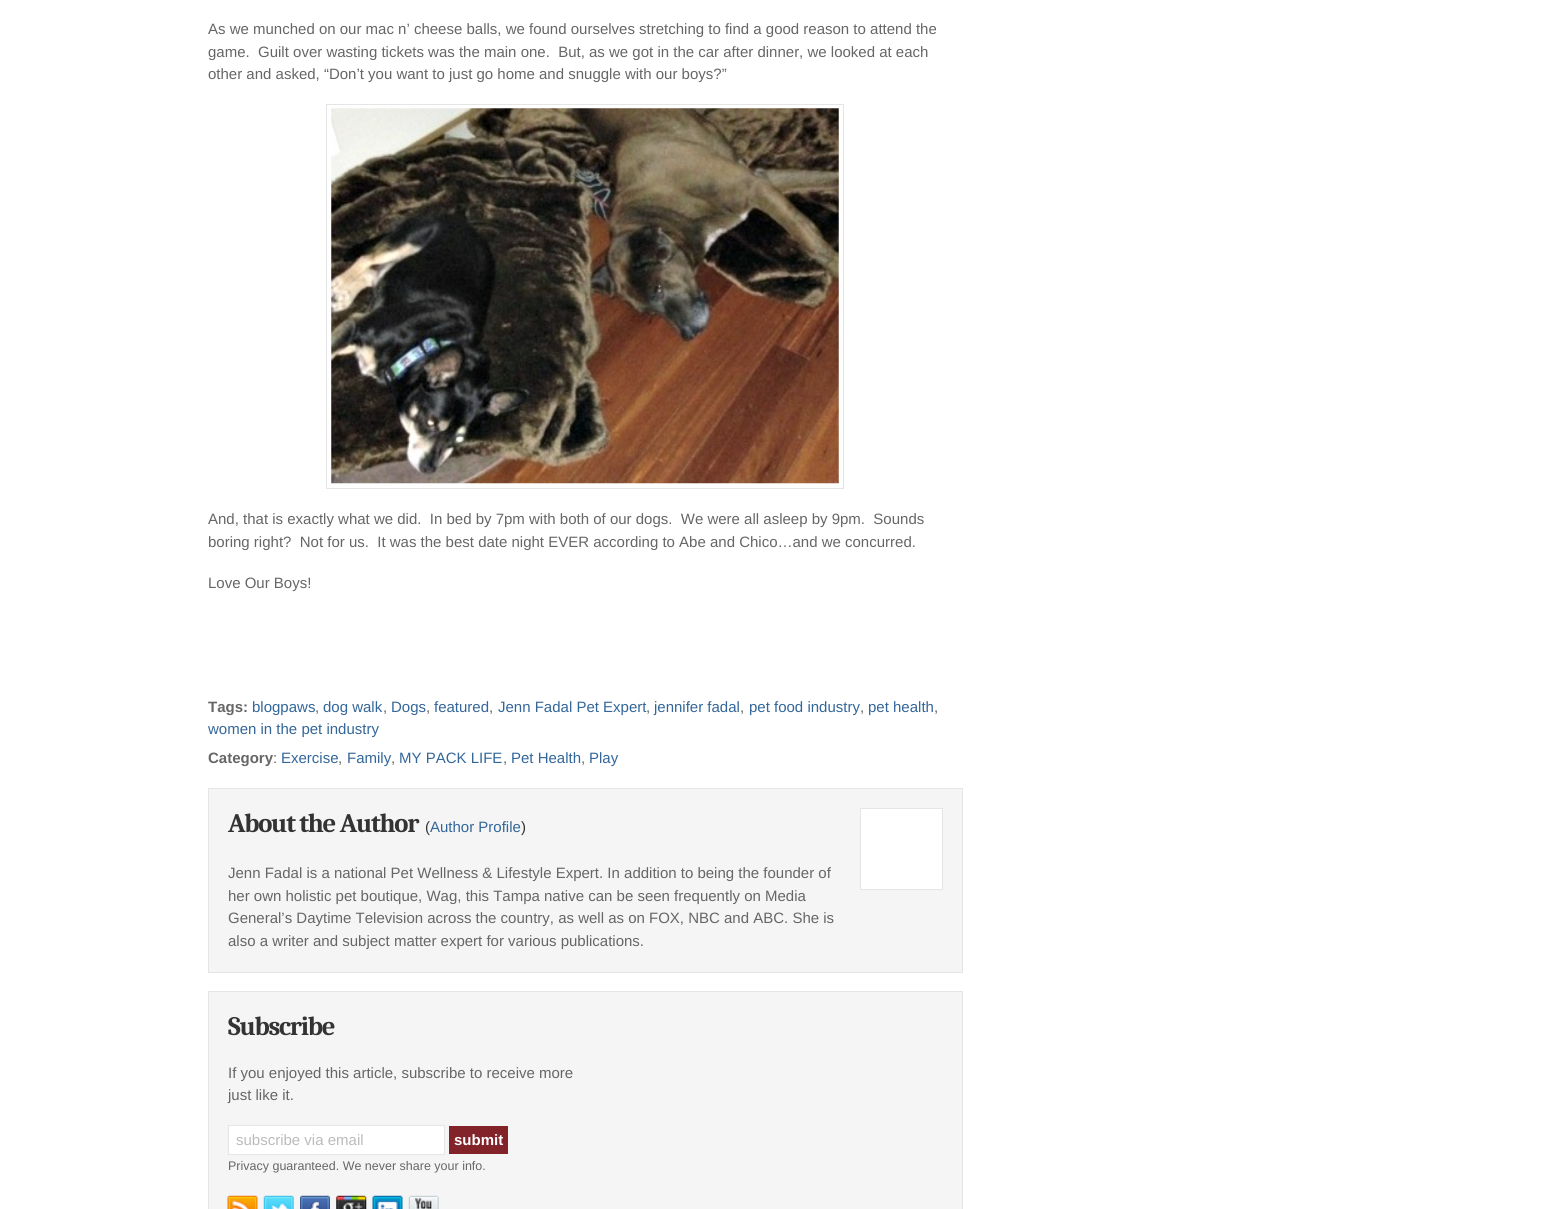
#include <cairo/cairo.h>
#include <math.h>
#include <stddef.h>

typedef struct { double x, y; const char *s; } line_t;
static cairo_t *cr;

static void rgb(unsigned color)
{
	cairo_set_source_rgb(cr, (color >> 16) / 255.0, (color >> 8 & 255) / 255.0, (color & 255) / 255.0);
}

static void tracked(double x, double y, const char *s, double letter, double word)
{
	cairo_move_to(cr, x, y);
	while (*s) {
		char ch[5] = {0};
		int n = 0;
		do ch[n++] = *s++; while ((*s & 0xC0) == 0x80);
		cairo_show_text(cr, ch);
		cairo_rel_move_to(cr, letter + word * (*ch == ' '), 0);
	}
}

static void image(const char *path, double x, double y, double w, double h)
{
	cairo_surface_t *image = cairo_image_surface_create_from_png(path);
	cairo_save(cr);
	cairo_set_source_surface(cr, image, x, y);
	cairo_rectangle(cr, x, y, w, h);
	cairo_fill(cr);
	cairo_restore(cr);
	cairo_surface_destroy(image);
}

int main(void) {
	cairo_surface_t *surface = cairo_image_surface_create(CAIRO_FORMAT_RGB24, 1565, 1209);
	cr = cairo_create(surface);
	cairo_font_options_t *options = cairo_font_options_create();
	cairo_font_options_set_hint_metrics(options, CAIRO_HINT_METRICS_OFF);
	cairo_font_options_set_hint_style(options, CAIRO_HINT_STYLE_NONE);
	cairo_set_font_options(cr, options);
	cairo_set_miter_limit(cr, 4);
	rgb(0xffffff);
	cairo_paint(cr);
	cairo_rectangle(cr, 326.5, 104.5, 517, 384);
	rgb(0xe5e5e5);
	cairo_set_line_width(cr, 1);
	cairo_stroke(cr);
	image("img/1.png", 331, 108, 508, 376);
	rgb(0xf5f5f5);
	cairo_rectangle(cr, 208.5, 788.5, 754, 184);
	cairo_fill_preserve(cr);
	rgb(0xe5e5e5);
	cairo_stroke(cr);
	rgb(0xffffff);
	cairo_rectangle(cr, 860.5, 808.5, 82, 81);
	cairo_fill_preserve(cr);
	rgb(0xe5e5e5);
	cairo_stroke(cr);
	rgb(0xf5f5f5);
	cairo_rectangle(cr, 208.5, 991.5, 754, 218);
	cairo_fill_preserve(cr);
	rgb(0xe5e5e5);
	cairo_stroke(cr);
	rgb(0xffffff);
	cairo_rectangle(cr, 228.5, 1125.5, 216, 29);
	cairo_fill_preserve(cr);
	rgb(0xe5e5e5);
	cairo_stroke(cr);
	rgb(0x822329);
	cairo_rectangle(cr, 449, 1126, 59, 28);
	cairo_fill(cr);
	image("img/2.png", 227, 1195, 31, 14);
	image("img/3.png", 263, 1195, 31, 14);
	image("img/4.png", 300, 1195, 30, 14);
	image("img/5.png", 336, 1195, 31, 14);
	image("img/6.png", 372, 1195, 31, 14);
	image("img/7.png", 408, 1195, 31, 14);
	cairo_select_font_face(cr, "Liberation Sans", CAIRO_FONT_SLANT_NORMAL, CAIRO_FONT_WEIGHT_NORMAL);
	cairo_set_font_size(cr, 15);
	rgb(0x666666);
	{
		static const line_t items[] = {
			{208, 34, "As we munched on our mac n’ cheese balls, we found ourselves stretching to find a good reason to attend the"},
			{208, 57, "game.  Guilt over wasting tickets was the main one.  But, as we got in the car after dinner, we looked at each"},
			{208, 79, "other and asked, “Don’t you want to just go home and snuggle with our boys?”"},
			{208, 524, "And, that is exactly what we did.  In bed by 7pm with both of our dogs.  We were all asleep by 9pm.  Sounds"},
			{208, 547, "boring right?  Not for us.  It was the best date night EVER according to Abe and Chico…and we concurred."},
			{208, 588, "Love Our Boys!"},
		};
		for (size_t i = 0; i < sizeof items / sizeof *items; i++) {
			cairo_move_to(cr, items[i].x, items[i].y);
			cairo_show_text(cr, items[i].s);
		}
	}
	cairo_select_font_face(cr, "Liberation Sans", CAIRO_FONT_SLANT_NORMAL, CAIRO_FONT_WEIGHT_BOLD);
	cairo_move_to(cr, 208, 712);
	cairo_show_text(cr, "Tags:");
	cairo_select_font_face(cr, "Liberation Sans", CAIRO_FONT_SLANT_NORMAL, CAIRO_FONT_WEIGHT_NORMAL);
	rgb(0x336699);
	cairo_move_to(cr, 252, 712);
	cairo_show_text(cr, "blogpaws");
	rgb(0x666666);
	cairo_move_to(cr, 315, 712);
	cairo_show_text(cr, ",");
	rgb(0x336699);
	cairo_move_to(cr, 323, 712);
	cairo_show_text(cr, "dog walk");
	rgb(0x666666);
	cairo_move_to(cr, 383, 712);
	cairo_show_text(cr, ",");
	rgb(0x336699);
	cairo_move_to(cr, 391, 712);
	cairo_show_text(cr, "Dogs");
	rgb(0x666666);
	cairo_move_to(cr, 426, 712);
	cairo_show_text(cr, ",");
	rgb(0x336699);
	cairo_move_to(cr, 434, 712);
	cairo_show_text(cr, "featured");
	rgb(0x666666);
	cairo_move_to(cr, 489, 712);
	cairo_show_text(cr, ",");
	rgb(0x336699);
	cairo_move_to(cr, 498, 712);
	cairo_show_text(cr, "Jenn Fadal Pet Expert");
	rgb(0x666666);
	cairo_move_to(cr, 646, 712);
	cairo_show_text(cr, ",");
	rgb(0x336699);
	cairo_move_to(cr, 654, 712);
	cairo_show_text(cr, "jennifer fadal");
	rgb(0x666666);
	cairo_move_to(cr, 740, 712);
	cairo_show_text(cr, ",");
	rgb(0x336699);
	cairo_move_to(cr, 749, 712);
	cairo_show_text(cr, "pet food industry");
	rgb(0x666666);
	cairo_move_to(cr, 860, 712);
	cairo_show_text(cr, ",");
	rgb(0x336699);
	cairo_move_to(cr, 868, 712);
	cairo_show_text(cr, "pet health");
	rgb(0x666666);
	cairo_move_to(cr, 934, 712);
	cairo_show_text(cr, ",");
	rgb(0x336699);
	cairo_move_to(cr, 208, 734);
	cairo_show_text(cr, "women in the pet industry");
	cairo_select_font_face(cr, "Liberation Sans", CAIRO_FONT_SLANT_NORMAL, CAIRO_FONT_WEIGHT_BOLD);
	rgb(0x666666);
	cairo_move_to(cr, 208, 763);
	cairo_show_text(cr, "Category");
	cairo_select_font_face(cr, "Liberation Sans", CAIRO_FONT_SLANT_NORMAL, CAIRO_FONT_WEIGHT_NORMAL);
	cairo_move_to(cr, 273, 763);
	cairo_show_text(cr, ":");
	rgb(0x336699);
	cairo_move_to(cr, 281, 763);
	cairo_show_text(cr, "Exercise");
	rgb(0x666666);
	cairo_move_to(cr, 338, 763);
	cairo_show_text(cr, ",");
	rgb(0x336699);
	cairo_move_to(cr, 347, 763);
	cairo_show_text(cr, "Family");
	rgb(0x666666);
	cairo_move_to(cr, 391, 763);
	cairo_show_text(cr, ",");
	rgb(0x336699);
	cairo_move_to(cr, 399, 763);
	cairo_show_text(cr, "MY PACK LIFE");
	rgb(0x666666);
	cairo_move_to(cr, 503, 763);
	cairo_show_text(cr, ",");
	rgb(0x336699);
	cairo_move_to(cr, 511, 763);
	cairo_show_text(cr, "Pet Health");
	rgb(0x666666);
	cairo_move_to(cr, 581, 763);
	cairo_show_text(cr, ",");
	rgb(0x336699);
	cairo_move_to(cr, 589, 763);
	cairo_show_text(cr, "Play");
	cairo_select_font_face(cr, "Caladea", CAIRO_FONT_SLANT_NORMAL, CAIRO_FONT_WEIGHT_BOLD);
	cairo_set_font_size(cr, 26.75);
	rgb(0x333333);
	tracked(228, 832, "About the Author", -1.25, 0);
	cairo_select_font_face(cr, "Liberation Sans", CAIRO_FONT_SLANT_NORMAL, CAIRO_FONT_WEIGHT_NORMAL);
	cairo_set_font_size(cr, 15);
	cairo_move_to(cr, 425, 832);
	cairo_show_text(cr, "(");
	rgb(0x336699);
	cairo_move_to(cr, 430, 832);
	cairo_show_text(cr, "Author Profile");
	rgb(0x333333);
	cairo_move_to(cr, 521, 832);
	cairo_show_text(cr, ")");
	rgb(0x666666);
	{
		static const line_t items[] = {
			{228, 878, "Jenn Fadal is a national Pet Wellness & Lifestyle Expert. In addition to being the founder of"},
			{228, 901, "her own holistic pet boutique, Wag, this Tampa native can be seen frequently on Media"},
			{228, 923, "General’s Daytime Television across the country, as well as on FOX, NBC and ABC. She is"},
			{228, 946, "also a writer and subject matter expert for various publications."},
		};
		for (size_t i = 0; i < sizeof items / sizeof *items; i++) {
			cairo_move_to(cr, items[i].x, items[i].y);
			cairo_show_text(cr, items[i].s);
		}
	}
	cairo_select_font_face(cr, "Caladea", CAIRO_FONT_SLANT_NORMAL, CAIRO_FONT_WEIGHT_BOLD);
	cairo_set_font_size(cr, 26.75);
	rgb(0x333333);
	tracked(228, 1035, "Subscribe", -1.25, 0);
	cairo_select_font_face(cr, "Liberation Sans", CAIRO_FONT_SLANT_NORMAL, CAIRO_FONT_WEIGHT_NORMAL);
	cairo_set_font_size(cr, 15);
	rgb(0x666666);
	cairo_move_to(cr, 228, 1078);
	cairo_show_text(cr, "If you enjoyed this article, subscribe to receive more");
	cairo_move_to(cr, 228, 1100);
	cairo_show_text(cr, "just like it.");
	rgb(0xbbbbbb);
	cairo_move_to(cr, 236, 1145);
	cairo_show_text(cr, "subscribe via email");
	cairo_select_font_face(cr, "Liberation Sans", CAIRO_FONT_SLANT_NORMAL, CAIRO_FONT_WEIGHT_BOLD);
	rgb(0xffffff);
	cairo_move_to(cr, 454, 1145);
	cairo_show_text(cr, "submit");
	cairo_select_font_face(cr, "Liberation Sans", CAIRO_FONT_SLANT_NORMAL, CAIRO_FONT_WEIGHT_NORMAL);
	cairo_set_font_size(cr, 12.5);
	rgb(0x666666);
	cairo_move_to(cr, 228, 1170);
	cairo_show_text(cr, "Privacy guaranteed. We never share your info.");
	cairo_surface_write_to_png(surface, "page.png");
	cairo_font_options_destroy(options);
	cairo_destroy(cr);
	cairo_surface_destroy(surface);
	return 0;
}
